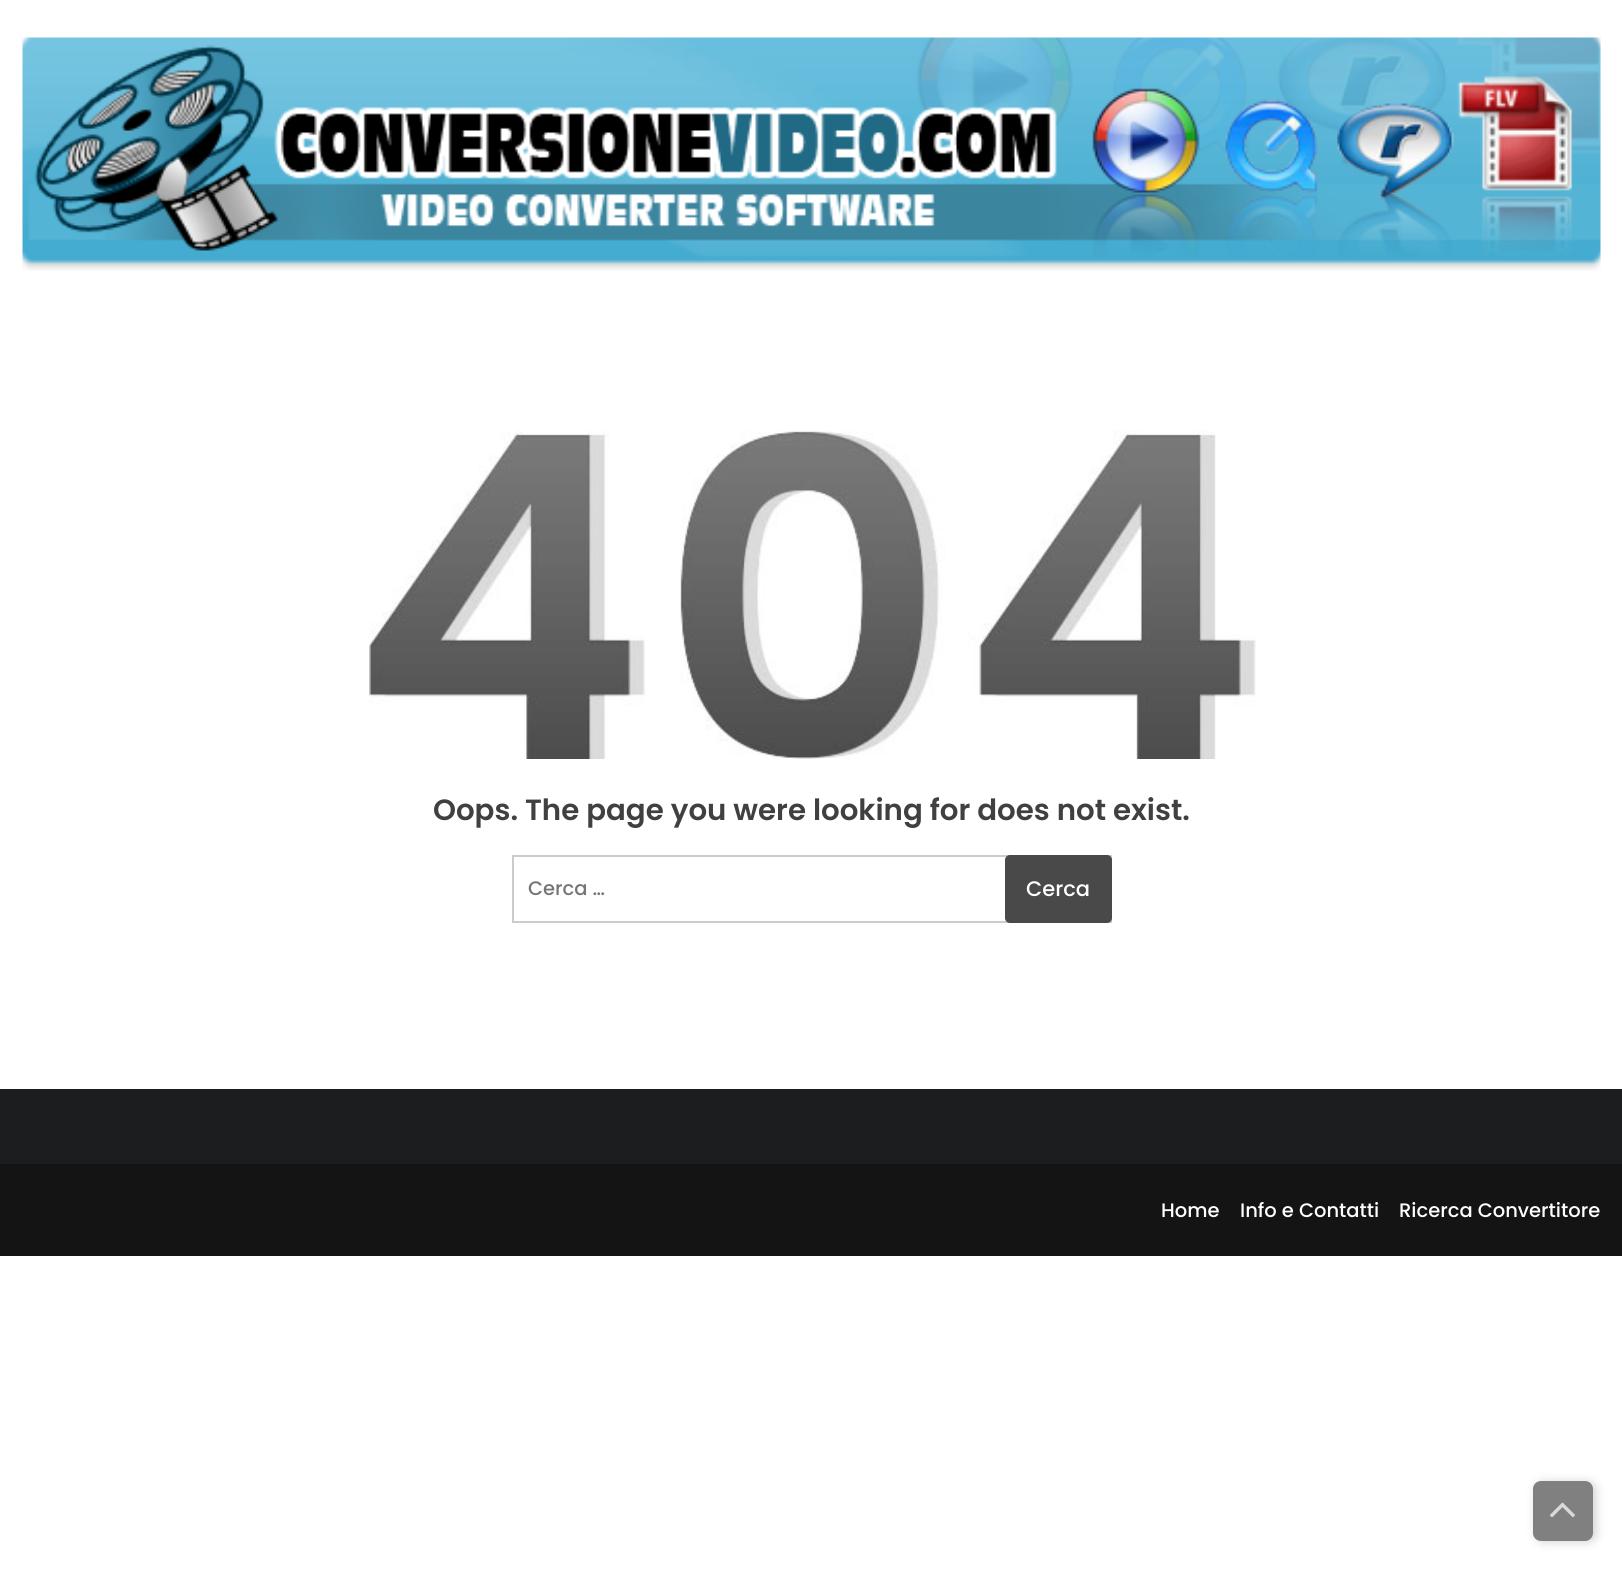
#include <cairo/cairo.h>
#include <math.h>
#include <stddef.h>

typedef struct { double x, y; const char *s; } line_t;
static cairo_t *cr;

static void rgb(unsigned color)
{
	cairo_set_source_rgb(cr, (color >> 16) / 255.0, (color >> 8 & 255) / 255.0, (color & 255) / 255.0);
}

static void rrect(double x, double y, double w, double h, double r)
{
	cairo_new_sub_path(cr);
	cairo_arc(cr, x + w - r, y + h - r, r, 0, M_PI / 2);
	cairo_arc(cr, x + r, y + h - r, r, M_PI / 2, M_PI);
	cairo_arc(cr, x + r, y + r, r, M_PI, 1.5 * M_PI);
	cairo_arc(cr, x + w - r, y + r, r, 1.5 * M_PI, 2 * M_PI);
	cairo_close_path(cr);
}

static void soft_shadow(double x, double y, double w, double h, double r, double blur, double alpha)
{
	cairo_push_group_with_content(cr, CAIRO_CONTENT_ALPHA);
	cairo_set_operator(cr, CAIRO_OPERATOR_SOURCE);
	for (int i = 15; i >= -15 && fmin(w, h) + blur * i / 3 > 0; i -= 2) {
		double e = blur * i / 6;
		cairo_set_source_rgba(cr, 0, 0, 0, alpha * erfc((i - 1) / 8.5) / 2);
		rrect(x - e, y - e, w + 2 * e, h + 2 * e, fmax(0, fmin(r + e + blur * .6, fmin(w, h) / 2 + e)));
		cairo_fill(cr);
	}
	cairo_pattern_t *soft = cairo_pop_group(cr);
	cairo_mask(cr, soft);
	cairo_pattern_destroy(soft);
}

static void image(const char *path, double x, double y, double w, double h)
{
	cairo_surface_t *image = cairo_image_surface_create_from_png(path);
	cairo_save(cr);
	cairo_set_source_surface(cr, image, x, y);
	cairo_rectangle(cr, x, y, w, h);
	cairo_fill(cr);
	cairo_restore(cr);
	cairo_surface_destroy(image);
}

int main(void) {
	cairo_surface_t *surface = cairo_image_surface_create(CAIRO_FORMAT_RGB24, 1622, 1570);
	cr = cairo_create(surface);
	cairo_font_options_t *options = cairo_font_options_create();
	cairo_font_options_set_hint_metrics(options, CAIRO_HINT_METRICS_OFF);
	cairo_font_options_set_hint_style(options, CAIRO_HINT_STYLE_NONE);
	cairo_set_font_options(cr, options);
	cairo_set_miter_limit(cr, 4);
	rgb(0xffffff);
	cairo_paint(cr);
	image("img/1.png", 22, 37, 1579, 234);
	image("img/2.png", 369, 430, 887, 329);
	cairo_rectangle(cr, 513, 856, 598, 66);
	rgb(0xcccccc);
	cairo_stroke(cr);
	rgb(0x494949);
	rrect(1005, 855, 107, 68, 5);
	cairo_fill(cr);
	rgb(0x1c1d1f);
	cairo_rectangle(cr, 0, 1089, 1622, 75);
	cairo_fill(cr);
	rgb(0x141414);
	cairo_rectangle(cr, 0, 1164, 1622, 92);
	cairo_fill(cr);
	rgb(0x5f5d5d);
	soft_shadow(1536, 1482, 60, 60, 8, 5, 0.28);
	rgb(0x808080);
	rrect(1533, 1481, 60, 60, 8);
	cairo_fill(cr);
	image("img/3.png", 1550, 1502, 25, 16);
	cairo_select_font_face(cr, "Poppins SemiBold", CAIRO_FONT_SLANT_NORMAL, CAIRO_FONT_WEIGHT_NORMAL);
	cairo_set_font_size(cr, 29.25);
	rgb(0x404040);
	cairo_move_to(cr, 433, 820);
	cairo_show_text(cr, "Oops. The page you were looking for does not exist.");
	cairo_select_font_face(cr, "Poppins Medium", CAIRO_FONT_SLANT_NORMAL, CAIRO_FONT_WEIGHT_NORMAL);
	cairo_set_font_size(cr, 19.5);
	rgb(0x757575);
	cairo_move_to(cr, 528, 895);
	cairo_show_text(cr, "Cerca …");
	cairo_set_font_size(cr, 21);
	rgb(0xffffff);
	cairo_move_to(cr, 1026, 896);
	cairo_show_text(cr, "Cerca");
	cairo_set_font_size(cr, 19.5);
	{
		static const line_t items[] = {
			{1161, 1217, "Home"},
			{1240, 1217, "Info e Contatti"},
			{1399, 1217, "Ricerca Convertitore"},
		};
		for (size_t i = 0; i < sizeof items / sizeof *items; i++) {
			cairo_move_to(cr, items[i].x, items[i].y);
			cairo_show_text(cr, items[i].s);
		}
	}
	cairo_surface_write_to_png(surface, "page.png");
	cairo_font_options_destroy(options);
	cairo_destroy(cr);
	cairo_surface_destroy(surface);
	return 0;
}
